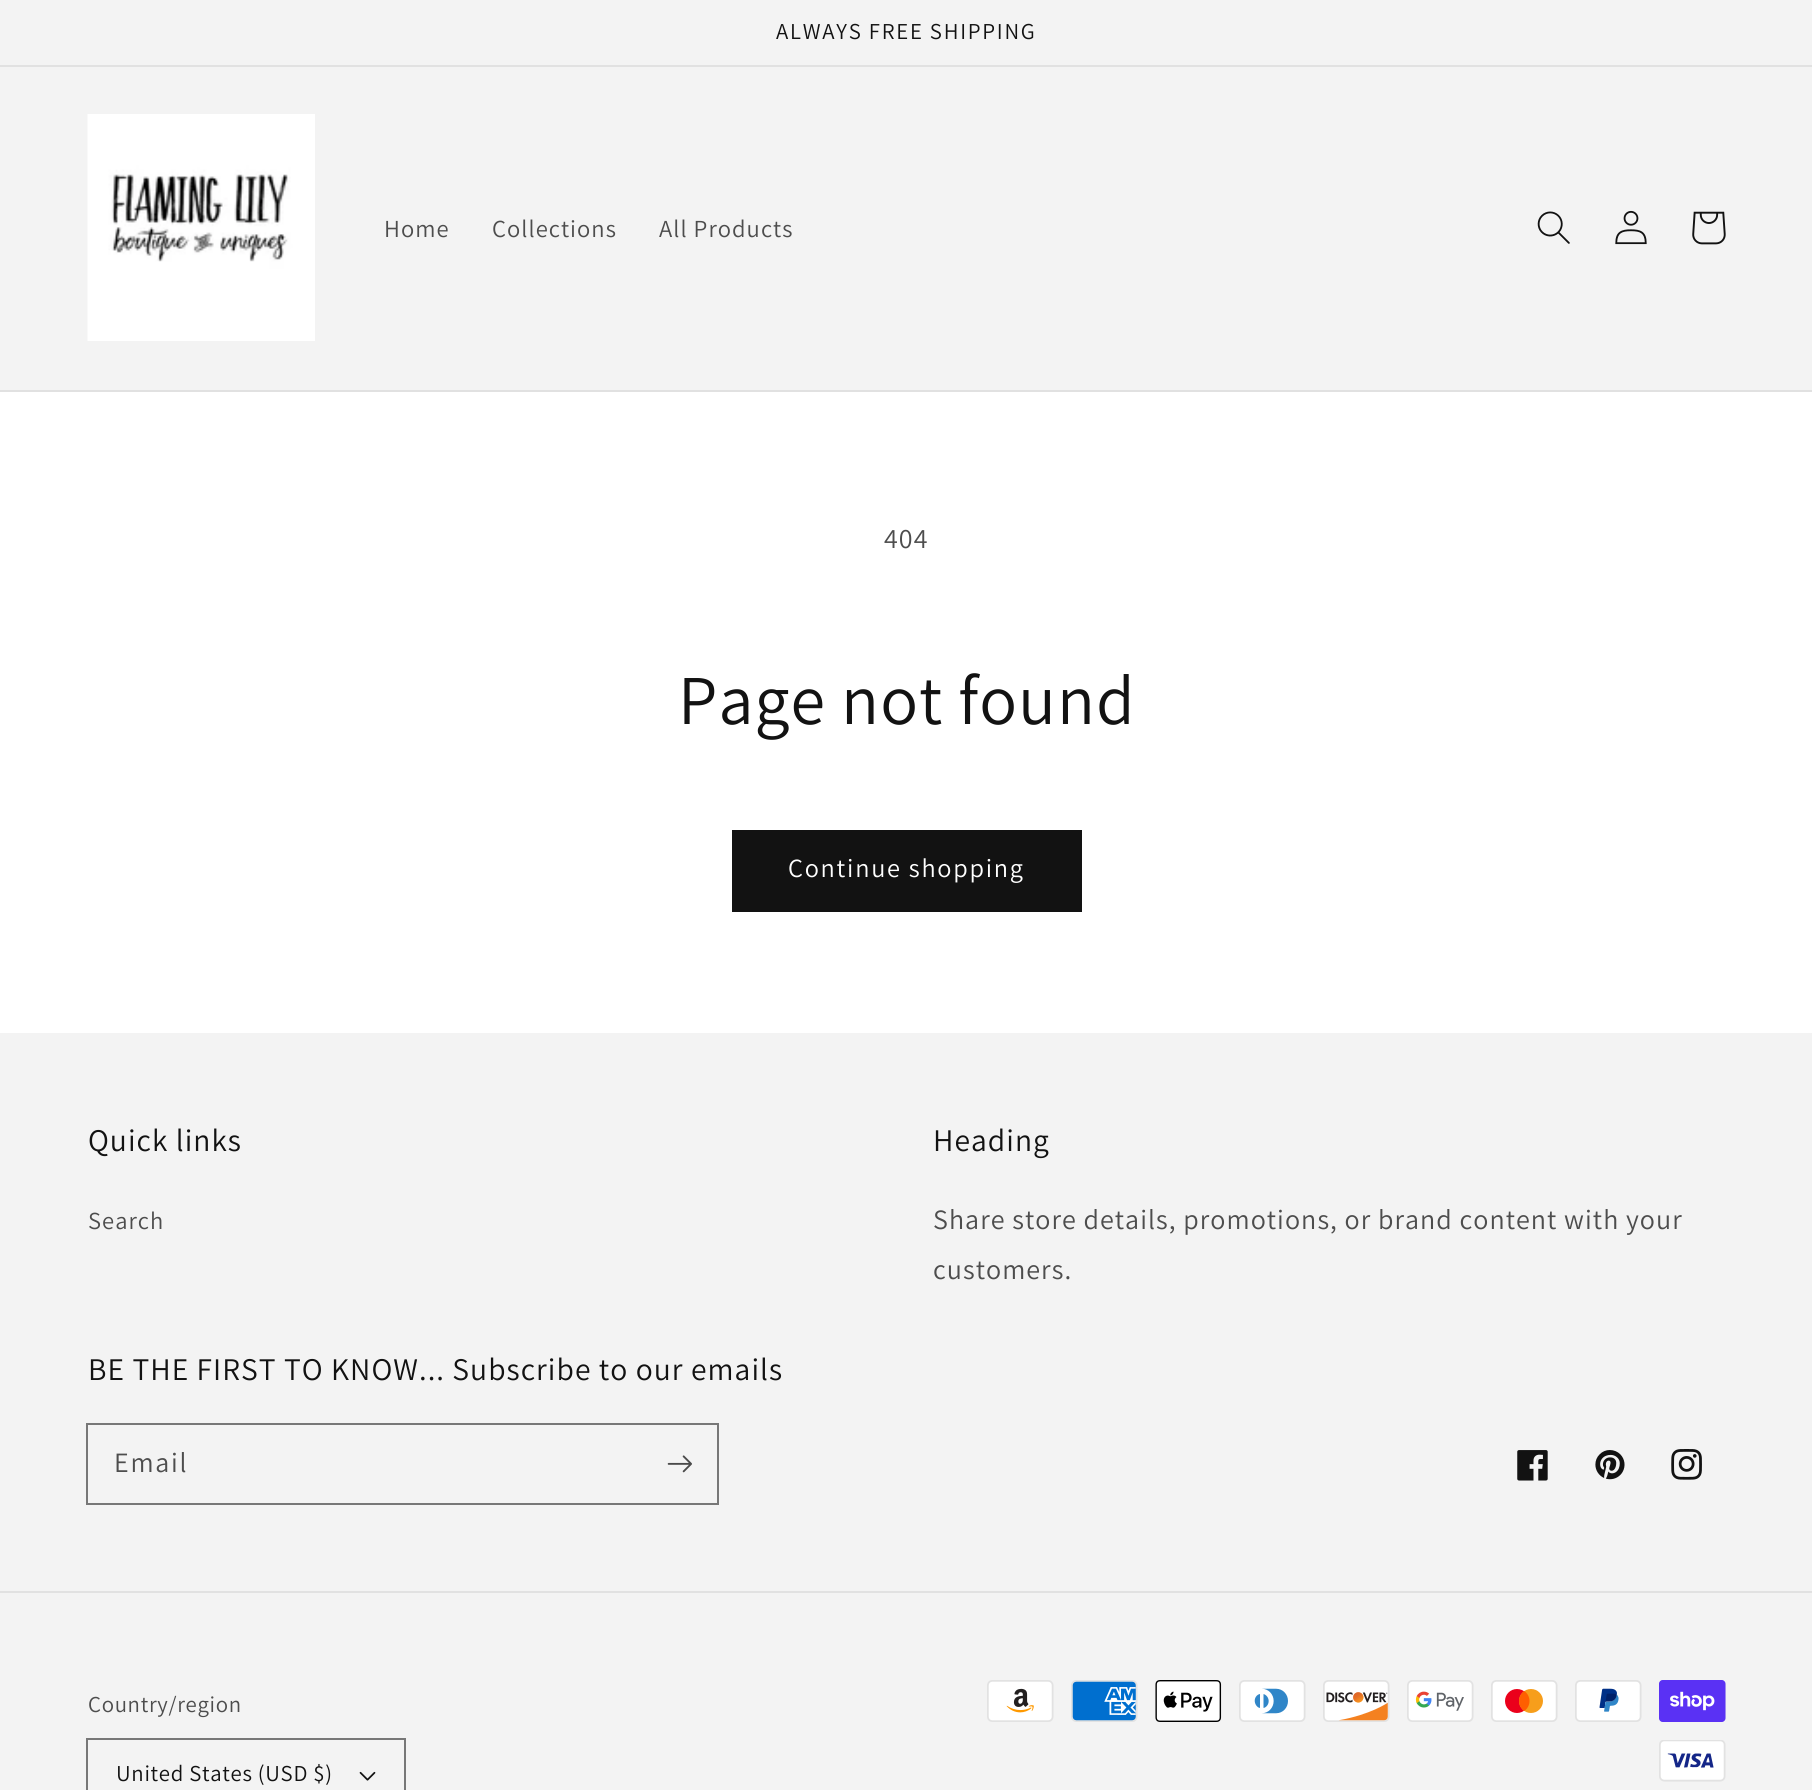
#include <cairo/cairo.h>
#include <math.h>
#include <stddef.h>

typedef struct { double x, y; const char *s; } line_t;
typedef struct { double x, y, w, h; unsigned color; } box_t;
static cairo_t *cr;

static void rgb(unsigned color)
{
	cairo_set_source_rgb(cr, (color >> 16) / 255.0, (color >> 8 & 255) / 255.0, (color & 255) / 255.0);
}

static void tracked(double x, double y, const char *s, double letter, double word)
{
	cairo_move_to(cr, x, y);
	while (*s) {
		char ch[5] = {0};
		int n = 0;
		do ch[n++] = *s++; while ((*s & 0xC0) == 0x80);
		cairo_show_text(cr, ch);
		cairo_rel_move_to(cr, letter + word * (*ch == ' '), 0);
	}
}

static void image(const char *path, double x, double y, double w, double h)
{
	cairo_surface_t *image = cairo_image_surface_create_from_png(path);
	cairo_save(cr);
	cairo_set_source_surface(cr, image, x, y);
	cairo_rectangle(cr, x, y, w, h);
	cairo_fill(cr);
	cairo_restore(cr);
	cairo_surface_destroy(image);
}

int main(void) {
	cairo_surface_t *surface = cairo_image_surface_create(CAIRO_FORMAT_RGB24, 1812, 1790);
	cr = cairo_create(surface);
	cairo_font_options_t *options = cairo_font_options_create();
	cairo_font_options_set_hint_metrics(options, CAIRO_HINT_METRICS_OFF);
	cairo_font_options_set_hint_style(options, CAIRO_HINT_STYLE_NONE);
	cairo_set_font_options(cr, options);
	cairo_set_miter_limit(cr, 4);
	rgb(0xffffff);
	cairo_paint(cr);
	{
		static const box_t items[] = {
			{0, 0, 1812, 65, 0xf3f3f3},
			{0, 65, 1812, 2, 0xe1e1e1},
			{0, 67, 1812, 323, 0xf3f3f3},
			{0, 390, 1812, 2, 0xe1e1e1},
		};
		for (size_t i = 0; i < sizeof items / sizeof *items; i++) {
			rgb(items[i].color);
			cairo_rectangle(cr, items[i].x, items[i].y, items[i].w, items[i].h);
			cairo_fill(cr);
		}
	}
	image("img/1.png", 87, 114, 228, 227);
	image("img/2.png", 1537, 211, 33, 33);
	image("img/3.png", 1615, 210, 32, 35);
	image("img/4.png", 1692, 211, 34, 34);
	cairo_rectangle(cr, 733, 831, 348, 80);
	rgb(0x121212);
	cairo_stroke(cr);
	cairo_rectangle(cr, 734, 832, 346, 78);
	cairo_fill(cr);
	rgb(0xf3f3f3);
	cairo_rectangle(cr, 0, 1033, 1812, 757);
	cairo_fill(cr);
	cairo_rectangle(cr, 87, 1424, 631, 80);
	rgb(0x777777);
	cairo_stroke(cr);
	image("img/5.png", 667, 1455, 25, 18);
	image("img/6.png", 1517, 1450, 31, 31);
	image("img/7.png", 1595, 1450, 30, 30);
	image("img/8.png", 1671, 1449, 31, 31);
	rgb(0xe1e1e1);
	cairo_rectangle(cr, 0, 1591, 1812, 2);
	cairo_fill(cr);
	cairo_rectangle(cr, 87, 1739, 318, 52);
	rgb(0x777777);
	cairo_stroke(cr);
	image("img/9.png", 359, 1771, 17, 10);
	image("img/10.png", 987, 1680, 67, 42);
	image("img/11.png", 1071, 1680, 67, 42);
	image("img/12.png", 1155, 1680, 67, 42);
	image("img/13.png", 1239, 1680, 67, 42);
	image("img/14.png", 1323, 1680, 67, 42);
	image("img/15.png", 1407, 1680, 67, 42);
	image("img/16.png", 1491, 1680, 67, 42);
	image("img/17.png", 1575, 1680, 67, 42);
	image("img/18.png", 1659, 1680, 67, 42);
	image("img/19.png", 1659, 1740, 67, 42);
	cairo_select_font_face(cr, "Assistant", CAIRO_FONT_SLANT_NORMAL, CAIRO_FONT_WEIGHT_NORMAL);
	cairo_set_font_size(cr, 22.75);
	rgb(0x121212);
	tracked(776, 39, "ALWAYS FREE SHIPPING", 1.75, 0);
	cairo_set_font_size(cr, 24.5);
	rgb(0x4d4d4d);
	{
		static const line_t items[] = {
			{384, 237, "Home"},
			{492, 237, "Collections"},
			{659, 237, "All Products"},
		};
		for (size_t i = 0; i < sizeof items / sizeof *items; i++) {
			tracked(items[i].x, items[i].y, items[i].s, 1.05, 0);
		}
	}
	cairo_set_font_size(cr, 28);
	tracked(884, 548, "404", 1.05, 0);
	cairo_set_font_size(cr, 70);
	rgb(0x121212);
	tracked(678, 724, "Page not found", 1.05, 0);
	cairo_set_font_size(cr, 26.25);
	rgb(0xffffff);
	tracked(788, 877, "Continue shopping", 1.75, 0);
	cairo_set_font_size(cr, 31.5);
	rgb(0x121212);
	tracked(88, 1151, "Quick links", 1.05, 0);
	cairo_set_font_size(cr, 24.5);
	rgb(0x4d4d4d);
	tracked(88, 1229, "Search", 1.05, 0);
	cairo_set_font_size(cr, 31.5);
	rgb(0x121212);
	tracked(933, 1151, "Heading", 1.05, 0);
	cairo_set_font_size(cr, 28);
	rgb(0x4d4d4d);
	tracked(933, 1229, "Share store details, promotions, or brand content with your", 1.05, 0);
	tracked(933, 1279, "customers.", 1.05, 0);
	cairo_set_font_size(cr, 31.5);
	rgb(0x121212);
	tracked(88, 1380, "BE THE FIRST TO KNOW... Subscribe to our emails", 1.05, 0);
	cairo_set_font_size(cr, 28);
	rgb(0x4d4d4d);
	tracked(114, 1472, "Email", 1.75, 0);
	cairo_set_font_size(cr, 22.75);
	tracked(88, 1712, "Country/region", 0.7, 0);
	rgb(0x121212);
	tracked(116, 1781, "United States (USD $)", 0.7, 0);
	cairo_surface_write_to_png(surface, "page.png");
	cairo_font_options_destroy(options);
	cairo_destroy(cr);
	cairo_surface_destroy(surface);
	return 0;
}
